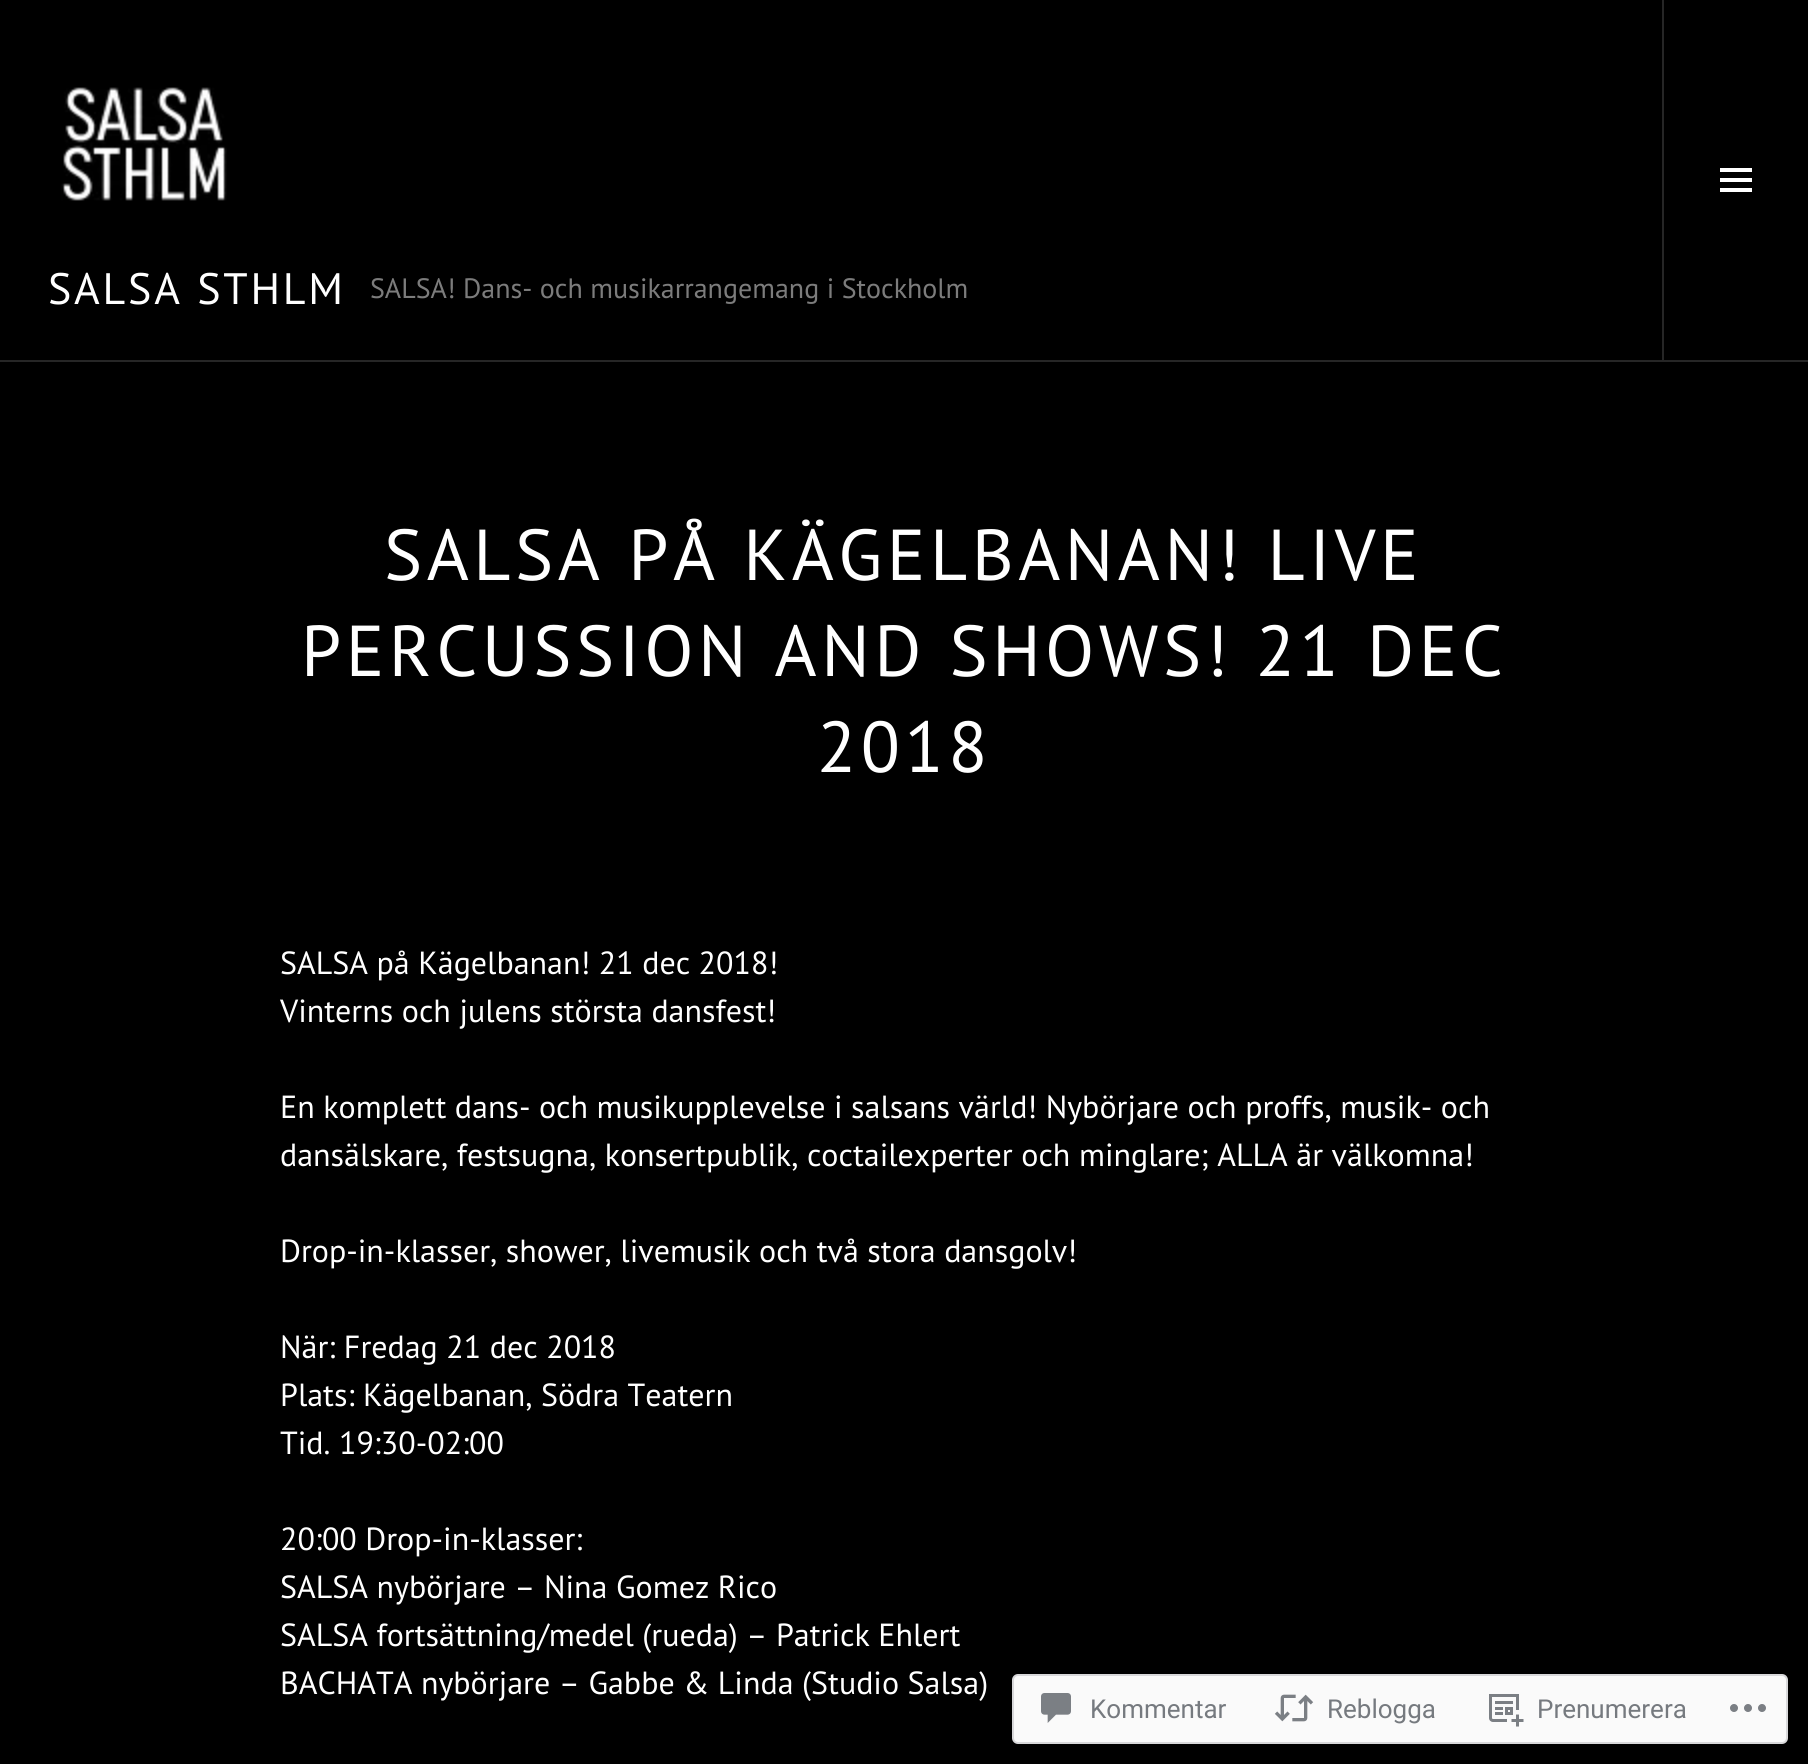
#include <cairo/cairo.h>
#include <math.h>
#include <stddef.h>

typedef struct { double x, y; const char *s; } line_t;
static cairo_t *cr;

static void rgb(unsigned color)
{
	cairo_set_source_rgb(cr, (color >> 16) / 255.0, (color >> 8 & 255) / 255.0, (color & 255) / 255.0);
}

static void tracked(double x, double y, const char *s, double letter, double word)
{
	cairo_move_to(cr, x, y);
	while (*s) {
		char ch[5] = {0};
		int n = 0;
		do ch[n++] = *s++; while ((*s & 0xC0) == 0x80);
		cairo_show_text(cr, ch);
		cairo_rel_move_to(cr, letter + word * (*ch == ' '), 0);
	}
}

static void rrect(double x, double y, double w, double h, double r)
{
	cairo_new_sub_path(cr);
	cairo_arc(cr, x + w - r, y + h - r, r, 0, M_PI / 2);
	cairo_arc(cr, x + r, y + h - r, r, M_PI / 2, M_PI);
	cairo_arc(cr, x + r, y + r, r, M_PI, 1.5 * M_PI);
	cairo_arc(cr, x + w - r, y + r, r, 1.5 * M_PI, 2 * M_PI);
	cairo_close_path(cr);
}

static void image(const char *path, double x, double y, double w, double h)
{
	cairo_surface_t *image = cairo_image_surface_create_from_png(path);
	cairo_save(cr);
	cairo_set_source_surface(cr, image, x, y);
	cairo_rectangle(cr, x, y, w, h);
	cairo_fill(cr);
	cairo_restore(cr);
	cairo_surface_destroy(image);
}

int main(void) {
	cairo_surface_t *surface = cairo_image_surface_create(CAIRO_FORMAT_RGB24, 1808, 1764);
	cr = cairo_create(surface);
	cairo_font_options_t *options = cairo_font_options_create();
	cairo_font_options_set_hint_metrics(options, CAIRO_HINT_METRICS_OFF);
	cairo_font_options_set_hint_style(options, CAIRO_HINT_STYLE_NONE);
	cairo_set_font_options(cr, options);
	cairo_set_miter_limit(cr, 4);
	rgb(0x000000);
	cairo_paint(cr);
	rgb(0x262626);
	cairo_rectangle(cr, 0, 360, 1808, 2);
	cairo_fill(cr);
	image("img/1.png", 61, 87, 166, 114);
	cairo_rectangle(cr, 1662, 0, 2, 360);
	cairo_fill(cr);
	image("img/2.png", 1720, 168, 32, 24);
	rgb(0xfafafa);
	rrect(1013, 1675, 774, 68, 5);
	cairo_fill_preserve(cr);
	rgb(0xd8d8da);
	cairo_stroke(cr);
	image("img/3.png", 1041, 1693, 30, 30);
	image("img/4.png", 1274, 1694, 40, 28);
	image("img/5.png", 1489, 1694, 35, 33);
	image("img/6.png", 1730, 1704, 36, 8);
	cairo_select_font_face(cr, "PT Sans", CAIRO_FONT_SLANT_NORMAL, CAIRO_FONT_WEIGHT_NORMAL);
	cairo_set_font_size(cr, 44);
	rgb(0xffffff);
	tracked(48, 304, "SALSA STHLM", 2.75, 0);
	cairo_set_font_size(cr, 28);
	rgb(0x7c7c7c);
	cairo_move_to(cr, 370, 298);
	cairo_show_text(cr, "SALSA! Dans- och musikarrangemang i Stockholm");
	cairo_set_font_size(cr, 72);
	rgb(0xffffff);
	{
		static const line_t items[] = {
			{384, 580, "SALSA PÅ KÄGELBANAN! LIVE"},
			{301, 676, "PERCUSSION AND SHOWS! 21 DEC"},
			{817, 772, "2018"},
		};
		for (size_t i = 0; i < sizeof items / sizeof *items; i++) {
			tracked(items[i].x, items[i].y, items[i].s, 4.5, 0);
		}
	}
	cairo_set_font_size(cr, 32);
	{
		static const line_t items[] = {
			{280, 974, "SALSA på Kägelbanan! 21 dec 2018!"},
			{280, 1022, "Vinterns och julens största dansfest!"},
			{280, 1118, "En komplett dans- och musikupplevelse i salsans värld! Nybörjare och proffs, musik- och"},
			{280, 1166, "dansälskare, festsugna, konsertpublik, coctailexperter och minglare; ALLA är välkomna!"},
			{280, 1262, "Drop-in-klasser, shower, livemusik och två stora dansgolv!"},
			{280, 1358, "När: Fredag 21 dec 2018"},
			{280, 1406, "Plats: Kägelbanan, Södra Teatern"},
			{280, 1454, "Tid. 19:30-02:00"},
			{280, 1550, "20:00 Drop-in-klasser:"},
			{280, 1598, "SALSA nybörjare – Nina Gomez Rico"},
			{280, 1646, "SALSA fortsättning/medel (rueda) – Patrick Ehlert"},
			{280, 1694, "BACHATA nybörjare – Gabbe & Linda (Studio Salsa)"},
		};
		for (size_t i = 0; i < sizeof items / sizeof *items; i++) {
			cairo_move_to(cr, items[i].x, items[i].y);
			cairo_show_text(cr, items[i].s);
		}
	}
	cairo_select_font_face(cr, "Roboto", CAIRO_FONT_SLANT_NORMAL, CAIRO_FONT_WEIGHT_NORMAL);
	cairo_set_font_size(cr, 26);
	rgb(0x767a7f);
	{
		static const line_t items[] = {
			{1090, 1718, "Kommentar"},
			{1327, 1718, "Reblogga"},
			{1537, 1718, "Prenumerera"},
		};
		for (size_t i = 0; i < sizeof items / sizeof *items; i++) {
			cairo_move_to(cr, items[i].x, items[i].y);
			cairo_show_text(cr, items[i].s);
		}
	}
	cairo_surface_write_to_png(surface, "page.png");
	cairo_font_options_destroy(options);
	cairo_destroy(cr);
	cairo_surface_destroy(surface);
	return 0;
}
